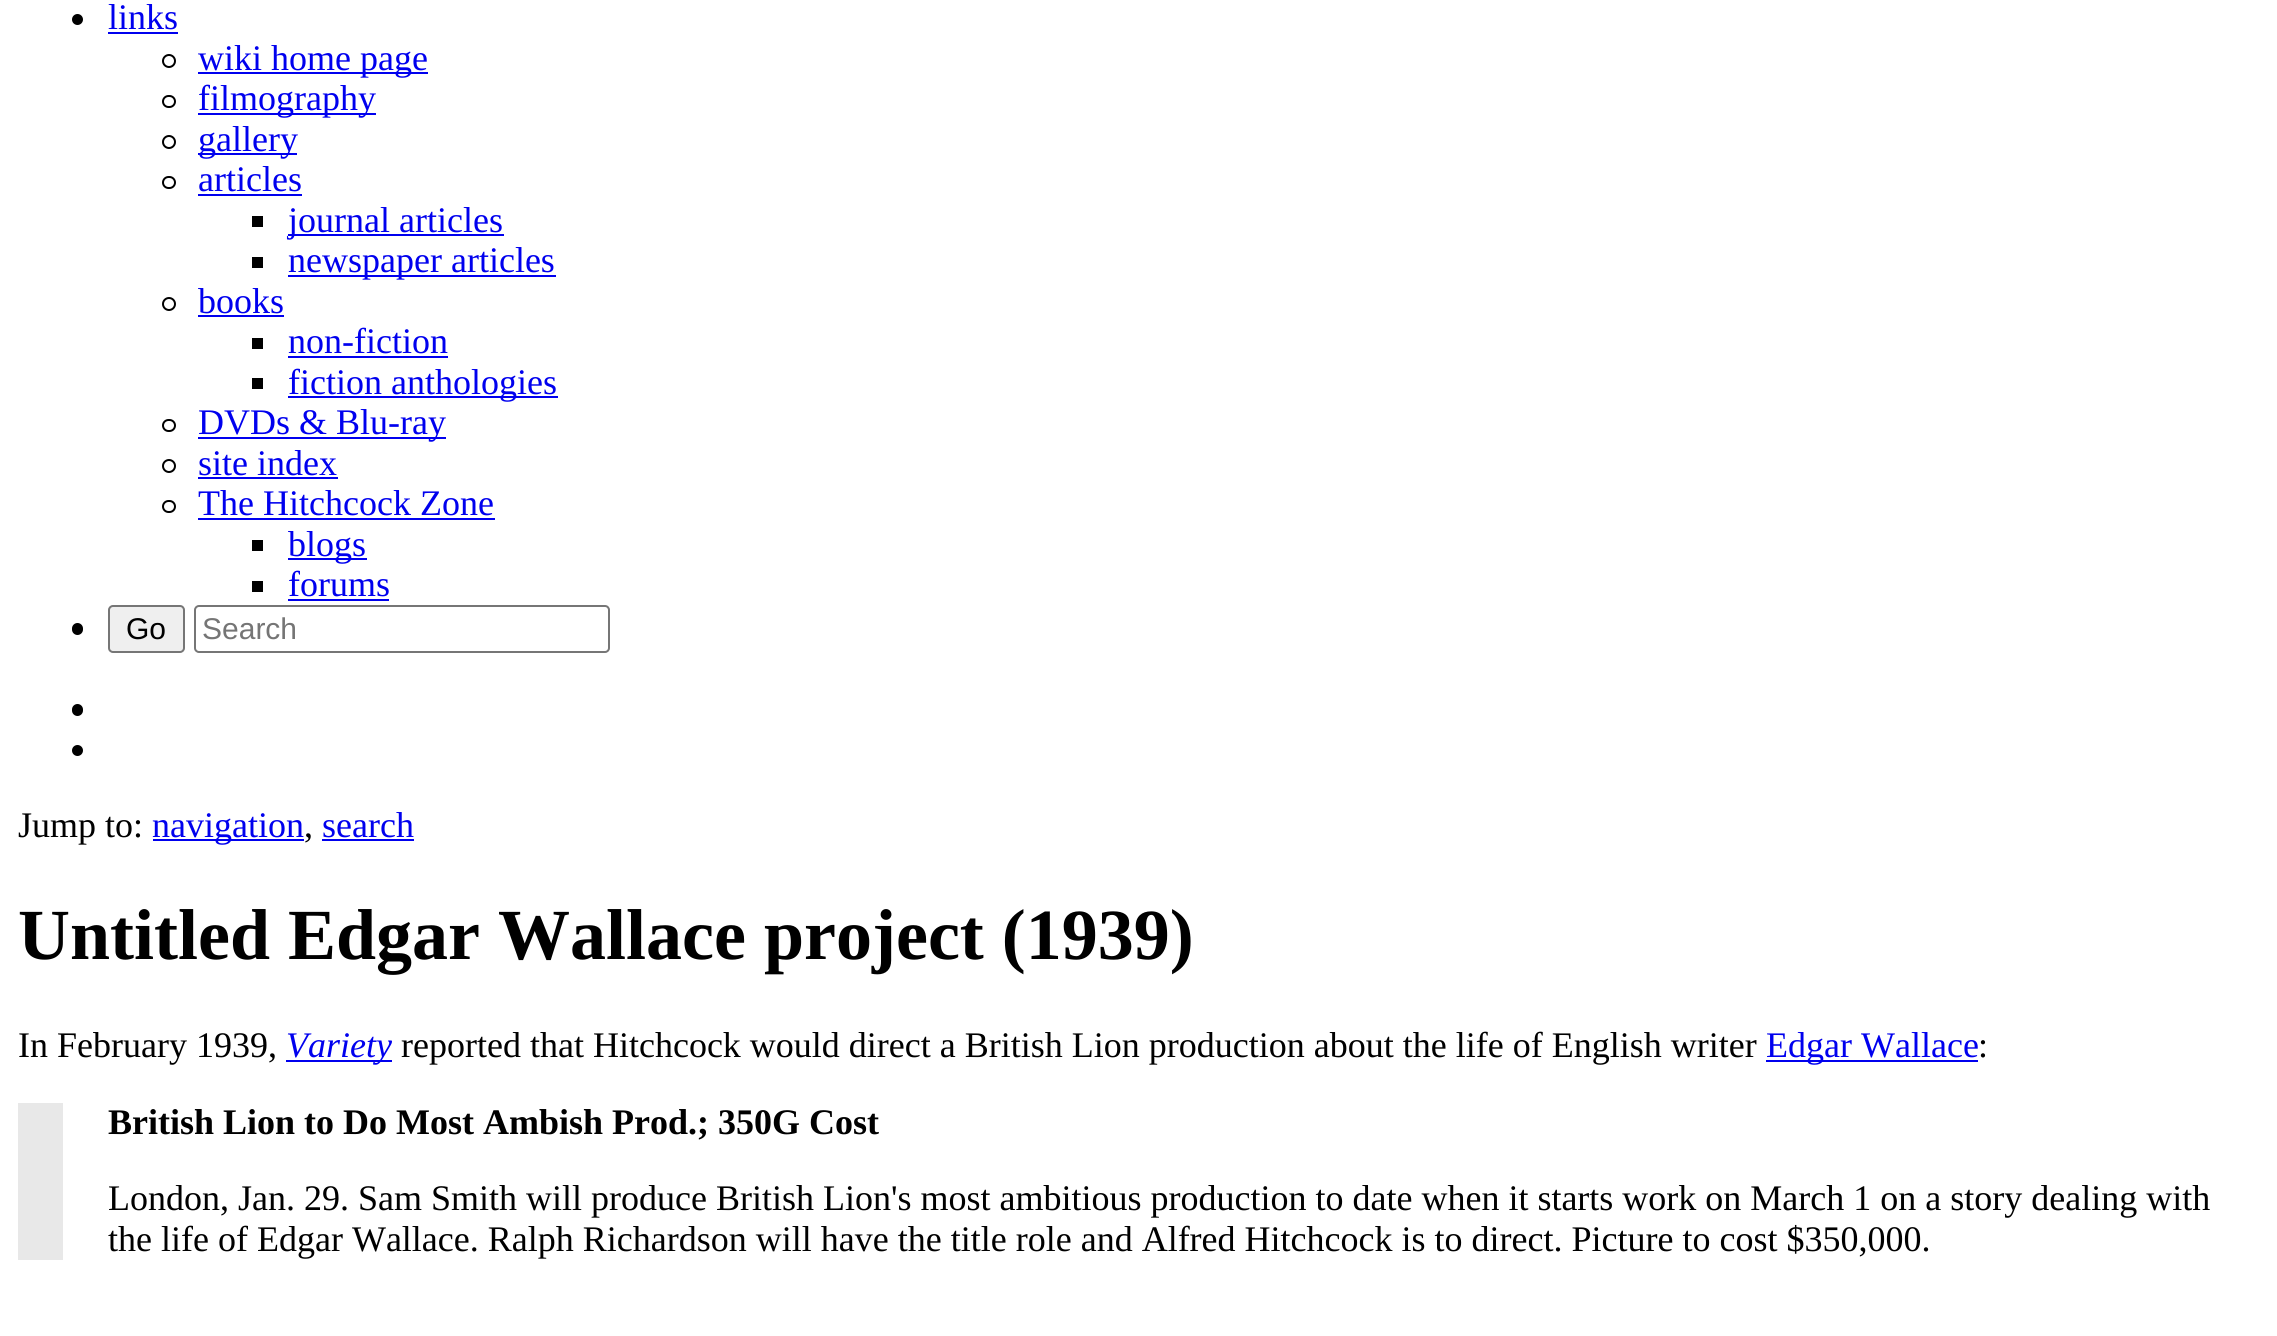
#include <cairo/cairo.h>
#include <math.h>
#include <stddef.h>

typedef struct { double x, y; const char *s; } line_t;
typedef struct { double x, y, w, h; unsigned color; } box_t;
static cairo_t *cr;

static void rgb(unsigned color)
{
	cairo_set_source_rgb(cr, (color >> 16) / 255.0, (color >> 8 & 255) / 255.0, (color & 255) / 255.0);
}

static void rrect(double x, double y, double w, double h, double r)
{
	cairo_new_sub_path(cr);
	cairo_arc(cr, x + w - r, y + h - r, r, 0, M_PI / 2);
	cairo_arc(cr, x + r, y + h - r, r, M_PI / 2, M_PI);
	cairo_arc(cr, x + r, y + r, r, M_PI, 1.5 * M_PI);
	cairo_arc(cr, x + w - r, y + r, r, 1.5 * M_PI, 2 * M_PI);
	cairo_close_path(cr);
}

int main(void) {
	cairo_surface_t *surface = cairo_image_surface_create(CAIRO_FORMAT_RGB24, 2277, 1336);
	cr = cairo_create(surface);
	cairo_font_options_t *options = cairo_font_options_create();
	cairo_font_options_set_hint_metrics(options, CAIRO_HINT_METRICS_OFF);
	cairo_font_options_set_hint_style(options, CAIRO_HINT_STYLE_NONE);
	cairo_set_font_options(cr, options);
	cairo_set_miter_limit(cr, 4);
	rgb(0xffffff);
	cairo_paint(cr);
	rgb(0x000000);
	cairo_arc(cr, 77.5, 19.5, 5.5, 0, 2 * M_PI);
	cairo_fill(cr);
	rgb(0x0000ee);
	cairo_rectangle(cr, 108, 32, 70, 2);
	cairo_fill(cr);
	cairo_arc(cr, 169, 61, 6, 0, 2 * M_PI);
	rgb(0x000000);
	cairo_stroke(cr);
	rgb(0x0000ee);
	cairo_rectangle(cr, 198, 72, 230, 2);
	cairo_fill(cr);
	rrect(163, 96, 12, 11, 5.5);
	rgb(0x000000);
	cairo_stroke(cr);
	rgb(0x0000ee);
	cairo_rectangle(cr, 198, 113, 178, 2);
	cairo_fill(cr);
	cairo_arc(cr, 169, 142, 6, 0, 2 * M_PI);
	rgb(0x000000);
	cairo_stroke(cr);
	rgb(0x0000ee);
	cairo_rectangle(cr, 198, 153, 99, 2);
	cairo_fill(cr);
	rrect(163, 177, 12, 11, 5.5);
	rgb(0x000000);
	cairo_stroke(cr);
	{
		static const box_t items[] = {
			{198, 194, 104, 2, 0x0000ee},
			{252, 216, 11, 11, 0x000000},
			{288, 234, 216, 2, 0x0000ee},
			{252, 257, 11, 11, 0x000000},
			{288, 275, 268, 2, 0x0000ee},
		};
		for (size_t i = 0; i < sizeof items / sizeof *items; i++) {
			rgb(items[i].color);
			cairo_rectangle(cr, items[i].x, items[i].y, items[i].w, items[i].h);
			cairo_fill(cr);
		}
	}
	cairo_arc(cr, 169, 304, 6, 0, 2 * M_PI);
	rgb(0x000000);
	cairo_stroke(cr);
	{
		static const box_t items[] = {
			{198, 315, 86, 2, 0x0000ee},
			{252, 338, 11, 11, 0x000000},
			{288, 356, 160, 2, 0x0000ee},
			{252, 378, 11, 11, 0x000000},
			{288, 396, 270, 2, 0x0000ee},
		};
		for (size_t i = 0; i < sizeof items / sizeof *items; i++) {
			rgb(items[i].color);
			cairo_rectangle(cr, items[i].x, items[i].y, items[i].w, items[i].h);
			cairo_fill(cr);
		}
	}
	rrect(163, 420, 12, 11, 5.5);
	rgb(0x000000);
	cairo_stroke(cr);
	rgb(0x0000ee);
	cairo_rectangle(cr, 198, 437, 248, 2);
	cairo_fill(cr);
	cairo_arc(cr, 169, 466, 6, 0, 2 * M_PI);
	rgb(0x000000);
	cairo_stroke(cr);
	rgb(0x0000ee);
	cairo_rectangle(cr, 198, 477, 140, 2);
	cairo_fill(cr);
	rrect(163, 501, 12, 11, 5.5);
	rgb(0x000000);
	cairo_stroke(cr);
	{
		static const box_t items[] = {
			{198, 518, 297, 2, 0x0000ee},
			{252, 540, 11, 11, 0x000000},
			{288, 558, 79, 2, 0x0000ee},
			{252, 581, 11, 11, 0x000000},
			{288, 599, 101, 2, 0x0000ee},
		};
		for (size_t i = 0; i < sizeof items / sizeof *items; i++) {
			rgb(items[i].color);
			cairo_rectangle(cr, items[i].x, items[i].y, items[i].w, items[i].h);
			cairo_fill(cr);
		}
	}
	rgb(0x000000);
	rrect(72, 623, 11, 12, 5.5);
	cairo_fill(cr);
	rgb(0xefefef);
	rrect(109, 606, 75, 46, 4);
	cairo_fill_preserve(cr);
	rgb(0x767676);
	cairo_stroke(cr);
	rrect(195, 606, 414, 46, 4);
	cairo_stroke(cr);
	rgb(0x000000);
	rrect(72, 704, 11, 12, 5.5);
	cairo_fill(cr);
	cairo_arc(cr, 77.5, 750.5, 5.5, 0, 2 * M_PI);
	cairo_fill(cr);
	{
		static const box_t items[] = {
			{153, 839, 151, 2, 0x0000ee},
			{322, 839, 92, 2, 0x0000ee},
			{286, 1060, 106, 2, 0x0000ee},
			{1766, 1060, 212, 2, 0x0000ee},
			{18, 1103, 45, 157, 0xe8e8e8},
		};
		for (size_t i = 0; i < sizeof items / sizeof *items; i++) {
			rgb(items[i].color);
			cairo_rectangle(cr, items[i].x, items[i].y, items[i].w, items[i].h);
			cairo_fill(cr);
		}
	}
	cairo_select_font_face(cr, "Liberation Serif", CAIRO_FONT_SLANT_NORMAL, CAIRO_FONT_WEIGHT_NORMAL);
	cairo_set_font_size(cr, 36);
	rgb(0x0000ee);
	{
		static const line_t items[] = {
			{108, 29, "links"},
			{198, 70, "wiki home page"},
			{198, 110, "filmography"},
			{198, 151, "gallery"},
			{198, 191, "articles"},
			{288, 232, "journal articles"},
			{288, 272, "newspaper articles"},
			{198, 313, "books"},
			{288, 353, "non-fiction"},
			{288, 394, "fiction anthologies"},
			{198, 434, "DVDs & Blu-ray"},
			{198, 475, "site index"},
			{198, 515, "The Hitchcock Zone"},
			{288, 556, "blogs"},
			{288, 596, "forums"},
		};
		for (size_t i = 0; i < sizeof items / sizeof *items; i++) {
			cairo_move_to(cr, items[i].x, items[i].y);
			cairo_show_text(cr, items[i].s);
		}
	}
	cairo_select_font_face(cr, "Liberation Sans", CAIRO_FONT_SLANT_NORMAL, CAIRO_FONT_WEIGHT_NORMAL);
	cairo_set_font_size(cr, 30);
	rgb(0x000000);
	cairo_move_to(cr, 126, 639);
	cairo_show_text(cr, "Go");
	rgb(0x757575);
	cairo_move_to(cr, 202, 639);
	cairo_show_text(cr, "Search");
	cairo_select_font_face(cr, "Liberation Serif", CAIRO_FONT_SLANT_NORMAL, CAIRO_FONT_WEIGHT_NORMAL);
	cairo_set_font_size(cr, 36);
	rgb(0x000000);
	cairo_move_to(cr, 18, 837);
	cairo_show_text(cr, "Jump to:");
	rgb(0x0000ee);
	cairo_move_to(cr, 152, 837);
	cairo_show_text(cr, "navigation");
	rgb(0x000000);
	cairo_move_to(cr, 304, 837);
	cairo_show_text(cr, ",");
	rgb(0x0000ee);
	cairo_move_to(cr, 322, 837);
	cairo_show_text(cr, "search");
	cairo_select_font_face(cr, "Liberation Serif", CAIRO_FONT_SLANT_NORMAL, CAIRO_FONT_WEIGHT_BOLD);
	cairo_set_font_size(cr, 72);
	rgb(0x000000);
	cairo_move_to(cr, 18, 959);
	cairo_show_text(cr, "Untitled Edgar Wallace project (1939)");
	cairo_select_font_face(cr, "Liberation Serif", CAIRO_FONT_SLANT_NORMAL, CAIRO_FONT_WEIGHT_NORMAL);
	cairo_set_font_size(cr, 36);
	cairo_move_to(cr, 18, 1057);
	cairo_show_text(cr, "In February 1939,");
	cairo_select_font_face(cr, "Liberation Serif", CAIRO_FONT_SLANT_ITALIC, CAIRO_FONT_WEIGHT_NORMAL);
	rgb(0x0000ee);
	cairo_move_to(cr, 286, 1057);
	cairo_show_text(cr, "Variety");
	cairo_select_font_face(cr, "Liberation Serif", CAIRO_FONT_SLANT_NORMAL, CAIRO_FONT_WEIGHT_NORMAL);
	rgb(0x000000);
	cairo_move_to(cr, 401, 1057);
	cairo_show_text(cr, "reported that Hitchcock would direct a British Lion production about the life of English writer");
	rgb(0x0000ee);
	cairo_move_to(cr, 1766, 1057);
	cairo_show_text(cr, "Edgar Wallace");
	rgb(0x000000);
	cairo_move_to(cr, 1978, 1057);
	cairo_show_text(cr, ":");
	cairo_select_font_face(cr, "Liberation Serif", CAIRO_FONT_SLANT_NORMAL, CAIRO_FONT_WEIGHT_BOLD);
	cairo_move_to(cr, 108, 1134);
	cairo_show_text(cr, "British Lion to Do Most Ambish Prod.; 350G Cost");
	cairo_select_font_face(cr, "Liberation Serif", CAIRO_FONT_SLANT_NORMAL, CAIRO_FONT_WEIGHT_NORMAL);
	cairo_move_to(cr, 108, 1210);
	cairo_show_text(cr, "London, Jan. 29. Sam Smith will produce British Lion's most ambitious production to date when it starts work on March 1 on a story dealing with");
	cairo_move_to(cr, 108, 1251);
	cairo_show_text(cr, "the life of Edgar Wallace. Ralph Richardson will have the title role and Alfred Hitchcock is to direct. Picture to cost $350,000.");
	cairo_surface_write_to_png(surface, "page.png");
	cairo_font_options_destroy(options);
	cairo_destroy(cr);
	cairo_surface_destroy(surface);
	return 0;
}
